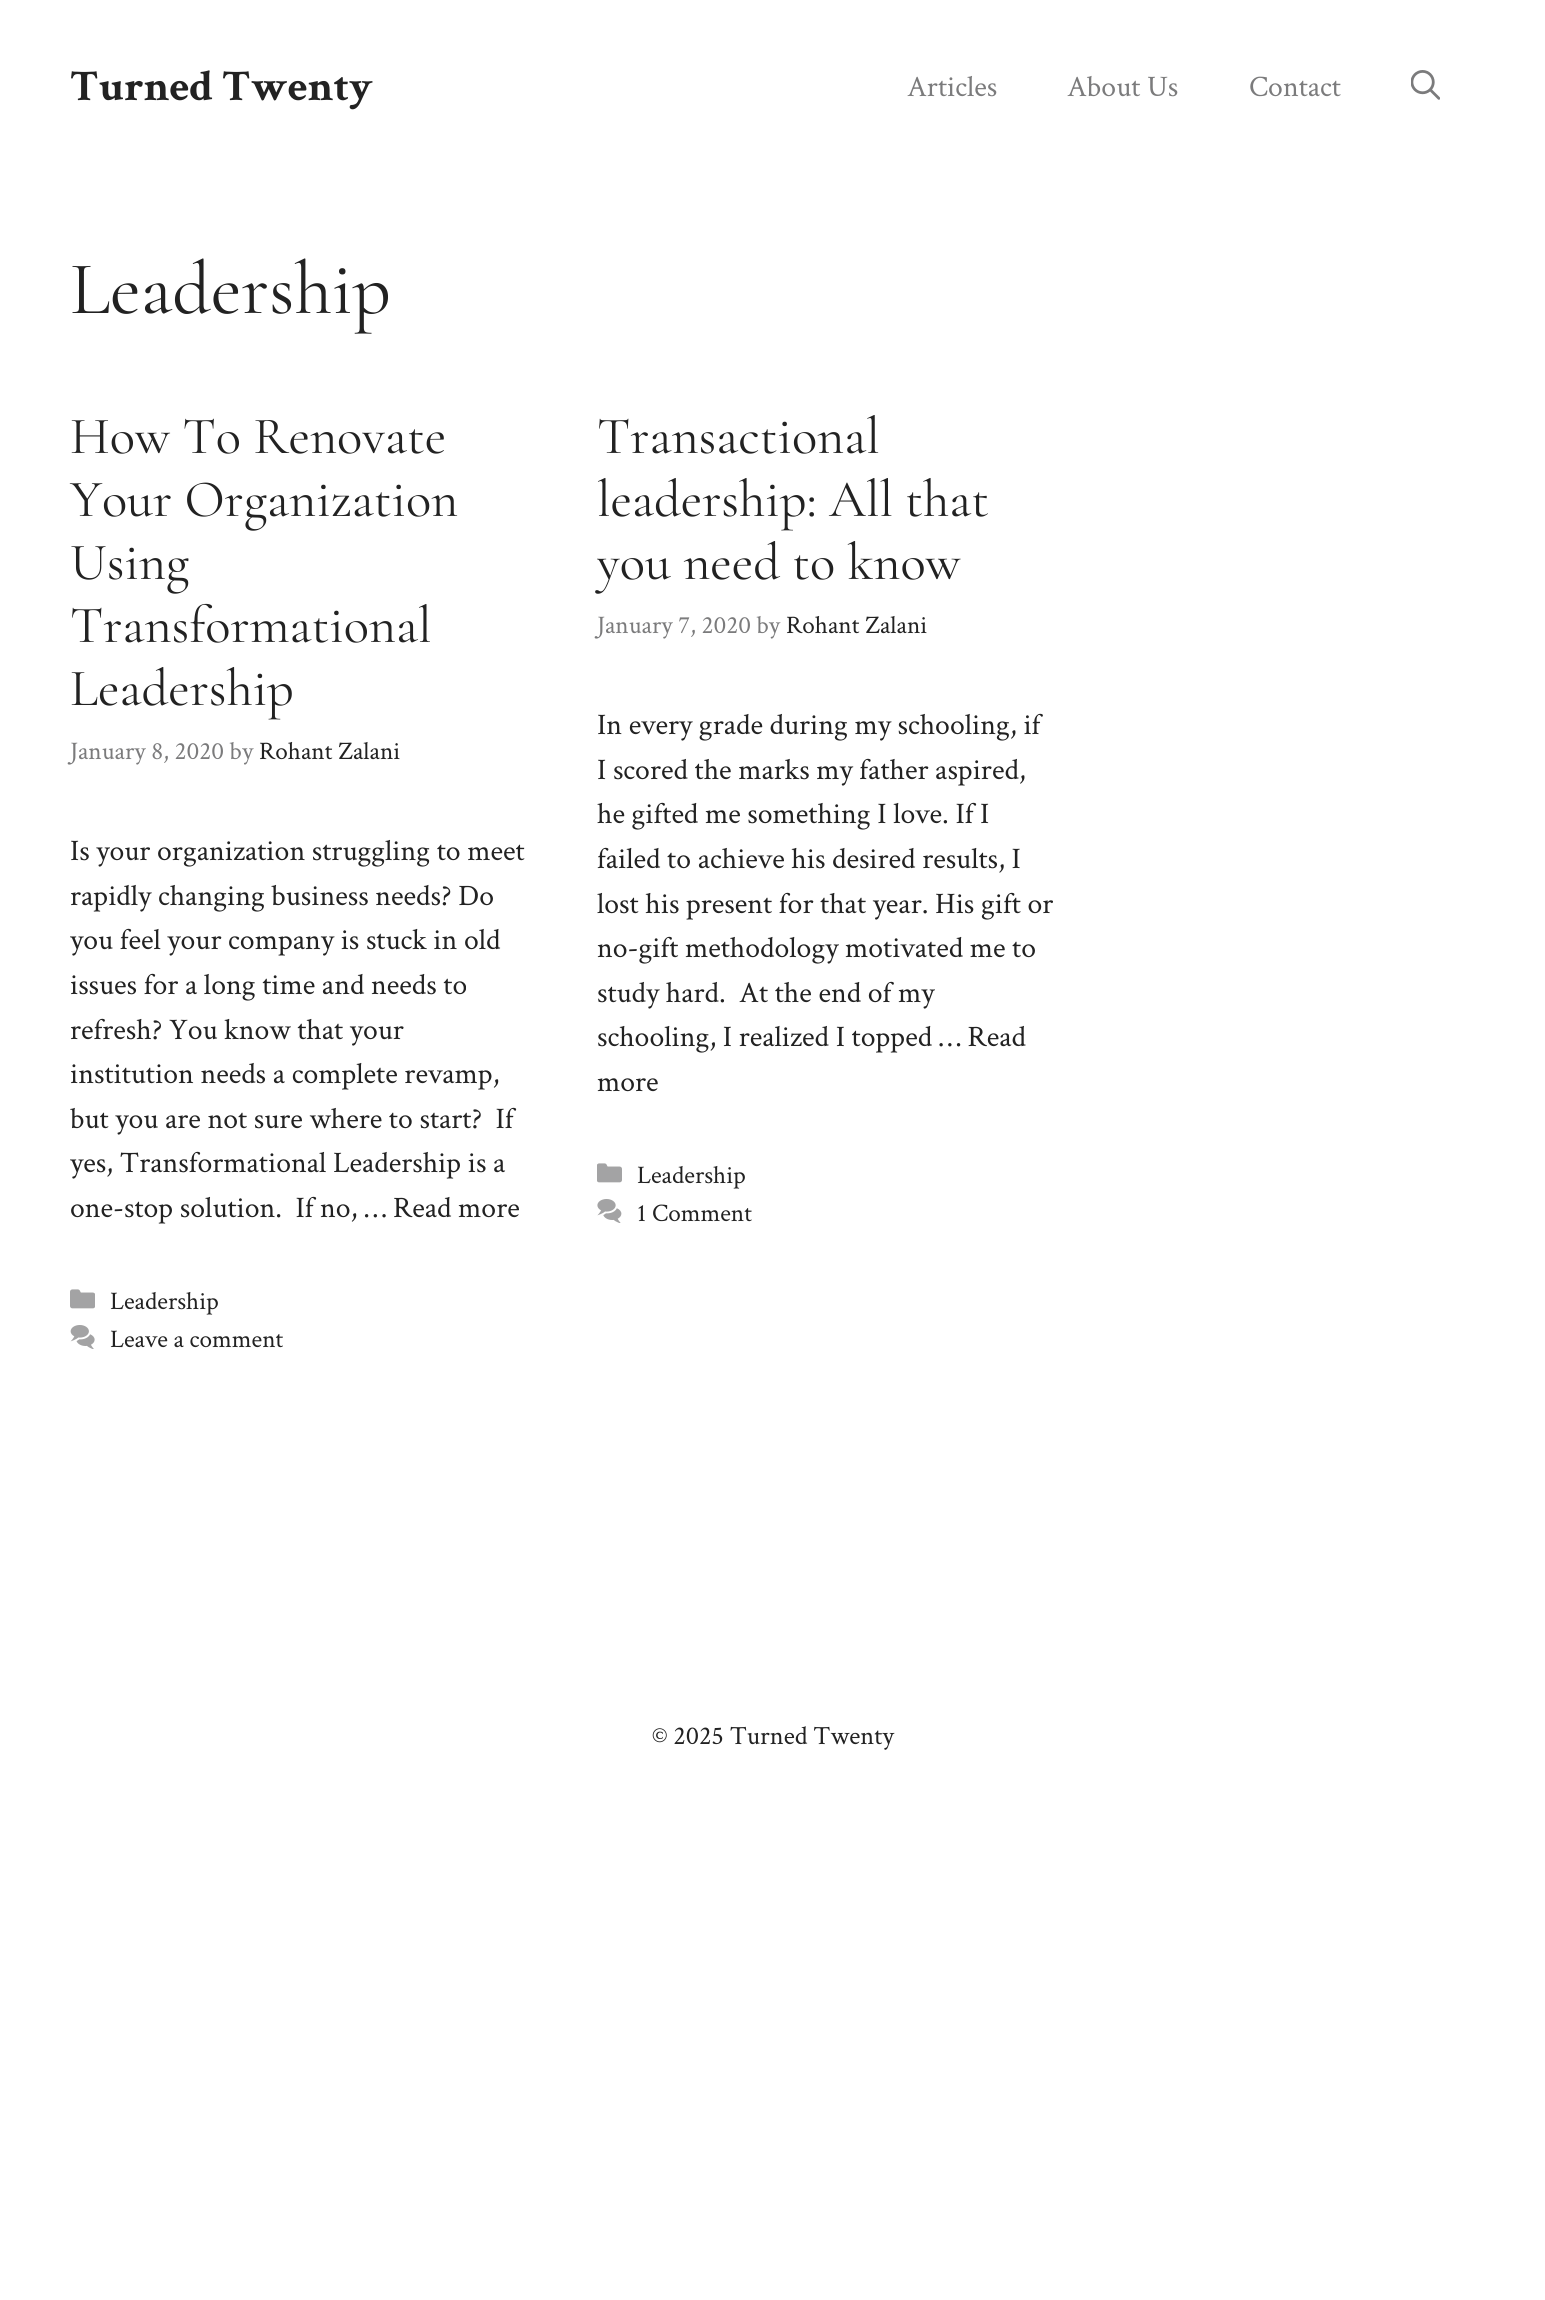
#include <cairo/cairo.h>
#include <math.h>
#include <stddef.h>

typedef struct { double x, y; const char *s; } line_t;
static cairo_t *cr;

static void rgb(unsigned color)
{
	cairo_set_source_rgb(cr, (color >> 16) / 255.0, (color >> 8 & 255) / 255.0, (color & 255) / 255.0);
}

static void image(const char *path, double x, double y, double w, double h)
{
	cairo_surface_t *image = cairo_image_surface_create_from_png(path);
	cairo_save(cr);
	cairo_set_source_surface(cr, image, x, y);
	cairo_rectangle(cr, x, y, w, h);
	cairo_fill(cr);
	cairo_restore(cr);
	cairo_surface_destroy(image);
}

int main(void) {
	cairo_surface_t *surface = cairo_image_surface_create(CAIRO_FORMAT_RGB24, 1545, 2300);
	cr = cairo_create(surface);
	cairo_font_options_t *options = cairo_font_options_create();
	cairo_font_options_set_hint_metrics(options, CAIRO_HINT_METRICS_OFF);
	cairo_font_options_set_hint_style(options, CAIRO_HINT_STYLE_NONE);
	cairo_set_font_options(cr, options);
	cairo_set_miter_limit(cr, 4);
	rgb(0xffffff);
	cairo_paint(cr);
	image("img/1.png", 1411, 70, 29, 30);
	image("img/2.png", 70, 1289, 25, 20);
	image("img/3.png", 70, 1325, 25, 24);
	image("img/4.png", 597, 1163, 25, 20);
	image("img/5.png", 597, 1199, 25, 24);
	cairo_select_font_face(cr, "Crimson Text", CAIRO_FONT_SLANT_NORMAL, CAIRO_FONT_WEIGHT_BOLD);
	cairo_set_font_size(cr, 43.75);
	rgb(0x222222);
	cairo_move_to(cr, 70, 100);
	cairo_show_text(cr, "Turned Twenty");
	cairo_select_font_face(cr, "Crimson Text", CAIRO_FONT_SLANT_NORMAL, CAIRO_FONT_WEIGHT_NORMAL);
	cairo_set_font_size(cr, 29.75);
	rgb(0x7b7b7c);
	{
		static const line_t items[] = {
			{907, 96, "Articles"},
			{1067, 96, "About Us"},
			{1249, 96, "Contact"},
		};
		for (size_t i = 0; i < sizeof items / sizeof *items; i++) {
			cairo_move_to(cr, items[i].x, items[i].y);
			cairo_show_text(cr, items[i].s);
		}
	}
	cairo_select_font_face(cr, "Cormorant Garamond", CAIRO_FONT_SLANT_NORMAL, CAIRO_FONT_WEIGHT_NORMAL);
	cairo_set_font_size(cr, 75.25);
	rgb(0x222222);
	cairo_move_to(cr, 70, 313);
	cairo_show_text(cr, "Leadership");
	cairo_set_font_size(cr, 52.5);
	{
		static const line_t items[] = {
			{70, 453, "How To Renovate"},
			{70, 516, "Your Organization"},
			{70, 579, "Using"},
			{70, 642, "Transformational"},
			{70, 705, "Leadership"},
		};
		for (size_t i = 0; i < sizeof items / sizeof *items; i++) {
			cairo_move_to(cr, items[i].x, items[i].y);
			cairo_show_text(cr, items[i].s);
		}
	}
	cairo_select_font_face(cr, "Crimson Text", CAIRO_FONT_SLANT_NORMAL, CAIRO_FONT_WEIGHT_NORMAL);
	cairo_set_font_size(cr, 25.25);
	rgb(0x7b7b7c);
	cairo_move_to(cr, 70, 759);
	cairo_show_text(cr, "January 8, 2020 by");
	rgb(0x222222);
	cairo_move_to(cr, 259, 759);
	cairo_show_text(cr, "Rohant Zalani");
	cairo_set_font_size(cr, 29.75);
	{
		static const line_t items[] = {
			{70, 860, "Is your organization struggling to meet"},
			{70, 905, "rapidly changing business needs? Do"},
			{70, 949, "you feel your company is stuck in old"},
			{70, 994, "issues for a long time and needs to"},
			{70, 1039, "refresh? You know that your"},
			{70, 1083, "institution needs a complete revamp,"},
			{70, 1128, "but you are not sure where to start?  If"},
			{70, 1172, "yes, Transformational Leadership is a"},
			{70, 1217, "one-stop solution.  If no, … Read more"},
		};
		for (size_t i = 0; i < sizeof items / sizeof *items; i++) {
			cairo_move_to(cr, items[i].x, items[i].y);
			cairo_show_text(cr, items[i].s);
		}
	}
	cairo_set_font_size(cr, 25.25);
	cairo_move_to(cr, 110, 1309);
	cairo_show_text(cr, "Leadership");
	cairo_move_to(cr, 110, 1347);
	cairo_show_text(cr, "Leave a comment");
	cairo_select_font_face(cr, "Cormorant Garamond", CAIRO_FONT_SLANT_NORMAL, CAIRO_FONT_WEIGHT_NORMAL);
	cairo_set_font_size(cr, 52.5);
	{
		static const line_t items[] = {
			{597, 453, "Transactional"},
			{597, 516, "leadership: All that"},
			{597, 579, "you need to know"},
		};
		for (size_t i = 0; i < sizeof items / sizeof *items; i++) {
			cairo_move_to(cr, items[i].x, items[i].y);
			cairo_show_text(cr, items[i].s);
		}
	}
	cairo_select_font_face(cr, "Crimson Text", CAIRO_FONT_SLANT_NORMAL, CAIRO_FONT_WEIGHT_NORMAL);
	cairo_set_font_size(cr, 25.25);
	rgb(0x7b7b7c);
	cairo_move_to(cr, 597, 633);
	cairo_show_text(cr, "January 7, 2020 by");
	rgb(0x222222);
	cairo_move_to(cr, 786, 633);
	cairo_show_text(cr, "Rohant Zalani");
	cairo_set_font_size(cr, 29.75);
	{
		static const line_t items[] = {
			{597, 734, "In every grade during my schooling, if"},
			{597, 779, "I scored the marks my father aspired,"},
			{597, 823, "he gifted me something I love. If I"},
			{597, 868, "failed to achieve his desired results, I"},
			{597, 913, "lost his present for that year. His gift or"},
			{597, 957, "no-gift methodology motivated me to"},
			{597, 1002, "study hard.  At the end of my"},
			{597, 1046, "schooling, I realized I topped … Read"},
			{597, 1091, "more"},
		};
		for (size_t i = 0; i < sizeof items / sizeof *items; i++) {
			cairo_move_to(cr, items[i].x, items[i].y);
			cairo_show_text(cr, items[i].s);
		}
	}
	cairo_set_font_size(cr, 25.25);
	cairo_move_to(cr, 637, 1183);
	cairo_show_text(cr, "Leadership");
	cairo_move_to(cr, 637, 1221);
	cairo_show_text(cr, "1 Comment");
	cairo_set_font_size(cr, 26.25);
	cairo_move_to(cr, 652, 1744);
	cairo_show_text(cr, "© 2025 Turned Twenty");
	cairo_surface_write_to_png(surface, "page.png");
	cairo_font_options_destroy(options);
	cairo_destroy(cr);
	cairo_surface_destroy(surface);
	return 0;
}
